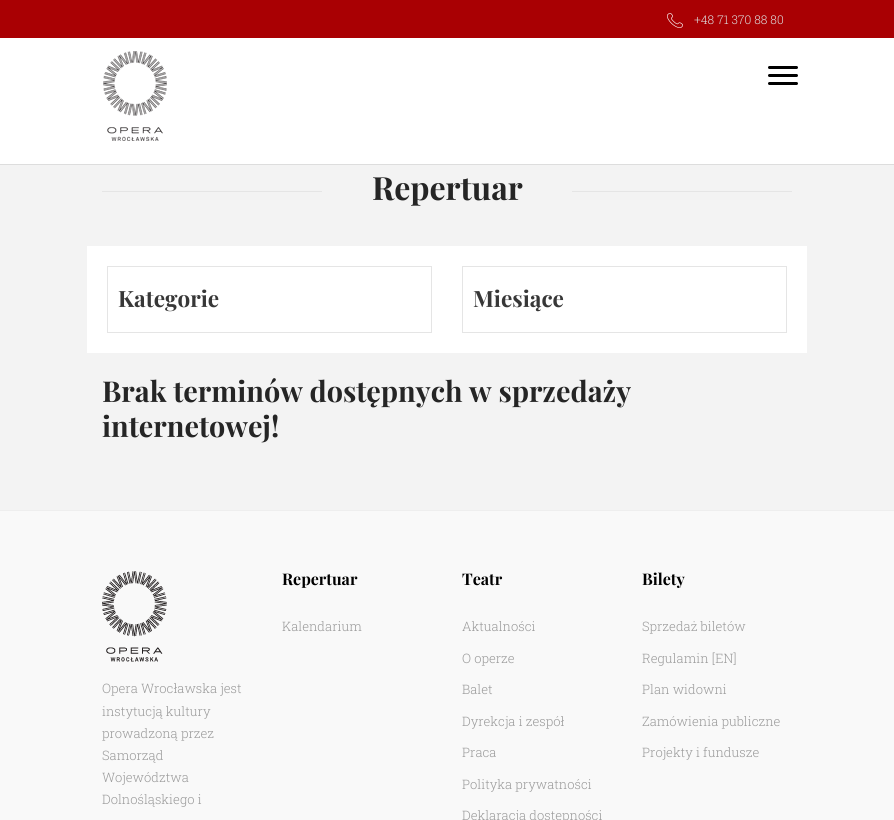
#include <cairo/cairo.h>
#include <math.h>
#include <stddef.h>

typedef struct { double x, y; const char *s; } line_t;
typedef struct { double x, y, w, h; unsigned color; } box_t;
static cairo_t *cr;

static void rgb(unsigned color)
{
	cairo_set_source_rgb(cr, (color >> 16) / 255.0, (color >> 8 & 255) / 255.0, (color & 255) / 255.0);
}

static void rrect(double x, double y, double w, double h, double r)
{
	cairo_new_sub_path(cr);
	cairo_arc(cr, x + w - r, y + h - r, r, 0, M_PI / 2);
	cairo_arc(cr, x + r, y + h - r, r, M_PI / 2, M_PI);
	cairo_arc(cr, x + r, y + r, r, M_PI, 1.5 * M_PI);
	cairo_arc(cr, x + w - r, y + r, r, 1.5 * M_PI, 2 * M_PI);
	cairo_close_path(cr);
}

static void image(const char *path, double x, double y, double w, double h)
{
	cairo_surface_t *image = cairo_image_surface_create_from_png(path);
	cairo_save(cr);
	cairo_set_source_surface(cr, image, x, y);
	cairo_rectangle(cr, x, y, w, h);
	cairo_fill(cr);
	cairo_restore(cr);
	cairo_surface_destroy(image);
}

int main(void) {
	cairo_surface_t *surface = cairo_image_surface_create(CAIRO_FORMAT_RGB24, 894, 820);
	cr = cairo_create(surface);
	cairo_font_options_t *options = cairo_font_options_create();
	cairo_font_options_set_hint_metrics(options, CAIRO_HINT_METRICS_OFF);
	cairo_font_options_set_hint_style(options, CAIRO_HINT_STYLE_NONE);
	cairo_set_font_options(cr, options);
	cairo_set_miter_limit(cr, 4);
	rgb(0xf3f3f3);
	cairo_paint(cr);
	{
		static const box_t items[] = {
			{0, 38, 894, 126, 0xffffff},
			{0, 164, 894, 1, 0xdddddd},
			{0, 0, 894, 38, 0xa90003},
		};
		for (size_t i = 0; i < sizeof items / sizeof *items; i++) {
			rgb(items[i].color);
			cairo_rectangle(cr, items[i].x, items[i].y, items[i].w, items[i].h);
			cairo_fill(cr);
		}
	}
	image("img/1.png", 667, 13, 16, 15);
	image("img/2.png", 103, 51, 64, 90);
	rgb(0x000000);
	rrect(768, 66, 30, 3, 1.5);
	cairo_fill(cr);
	rrect(768, 74, 30, 3, 1.5);
	cairo_fill(cr);
	rrect(768, 82, 30, 3, 1.5);
	cairo_fill(cr);
	{
		static const box_t items[] = {
			{102, 191, 690, 1, 0xe5e5e5},
			{322, 191, 250, 1, 0xf3f3f3},
			{87, 246, 720, 107, 0xffffff},
		};
		for (size_t i = 0; i < sizeof items / sizeof *items; i++) {
			rgb(items[i].color);
			cairo_rectangle(cr, items[i].x, items[i].y, items[i].w, items[i].h);
			cairo_fill(cr);
		}
	}
	cairo_rectangle(cr, 107.5, 266.5, 324, 66);
	rgb(0xe5e5e5);
	cairo_set_line_width(cr, 1);
	cairo_stroke(cr);
	cairo_rectangle(cr, 462.5, 266.5, 324, 66);
	cairo_stroke(cr);
	rgb(0xf9f9f9);
	cairo_rectangle(cr, 0, 511, 894, 309);
	cairo_fill(cr);
	rgb(0xeeeeee);
	cairo_rectangle(cr, 0, 510, 894, 1);
	cairo_fill(cr);
	image("img/3.png", 102, 571, 65, 91);
	cairo_select_font_face(cr, "Roboto Slab Light", CAIRO_FONT_SLANT_NORMAL, CAIRO_FONT_WEIGHT_NORMAL);
	cairo_set_font_size(cr, 12);
	rgb(0xdddddd);
	cairo_move_to(cr, 694, 24);
	cairo_show_text(cr, "+48 71 370 88 80");
	cairo_select_font_face(cr, "Playfair Display", CAIRO_FONT_SLANT_NORMAL, CAIRO_FONT_WEIGHT_BOLD);
	cairo_set_font_size(cr, 32);
	rgb(0x252525);
	cairo_move_to(cr, 372, 200);
	cairo_show_text(cr, "Repertuar");
	cairo_set_font_size(cr, 22.5);
	rgb(0x373737);
	cairo_move_to(cr, 118, 307);
	cairo_show_text(cr, "Kategorie");
	cairo_move_to(cr, 473, 307);
	cairo_show_text(cr, "Miesiące");
	cairo_set_font_size(cr, 28.75);
	rgb(0x252525);
	cairo_move_to(cr, 102, 402);
	cairo_show_text(cr, "Brak terminów dostępnych w sprzedaży");
	cairo_move_to(cr, 102, 437);
	cairo_show_text(cr, "internetowej!");
	cairo_select_font_face(cr, "Roboto Slab Light", CAIRO_FONT_SLANT_NORMAL, CAIRO_FONT_WEIGHT_NORMAL);
	cairo_set_font_size(cr, 13);
	rgb(0x9a9a9a);
	{
		static const line_t items[] = {
			{102, 693, "Opera Wrocławska jest"},
			{102, 716, "instytucją kultury"},
			{102, 738, "prowadzoną przez"},
			{102, 760, "Samorząd"},
			{102, 782, "Województwa"},
			{102, 804, "Dolnośląskiego i"},
		};
		for (size_t i = 0; i < sizeof items / sizeof *items; i++) {
			cairo_move_to(cr, items[i].x, items[i].y);
			cairo_show_text(cr, items[i].s);
		}
	}
	cairo_select_font_face(cr, "Playfair Display", CAIRO_FONT_SLANT_NORMAL, CAIRO_FONT_WEIGHT_BOLD);
	cairo_set_font_size(cr, 16);
	rgb(0x000000);
	cairo_move_to(cr, 282, 585);
	cairo_show_text(cr, "Repertuar");
	cairo_select_font_face(cr, "Roboto Slab Light", CAIRO_FONT_SLANT_NORMAL, CAIRO_FONT_WEIGHT_NORMAL);
	cairo_set_font_size(cr, 13);
	rgb(0x9a9a9a);
	cairo_move_to(cr, 282, 631);
	cairo_show_text(cr, "Kalendarium");
	cairo_select_font_face(cr, "Playfair Display", CAIRO_FONT_SLANT_NORMAL, CAIRO_FONT_WEIGHT_BOLD);
	cairo_set_font_size(cr, 16);
	rgb(0x000000);
	cairo_move_to(cr, 462, 585);
	cairo_show_text(cr, "Teatr");
	cairo_select_font_face(cr, "Roboto Slab Light", CAIRO_FONT_SLANT_NORMAL, CAIRO_FONT_WEIGHT_NORMAL);
	cairo_set_font_size(cr, 13);
	rgb(0x9a9a9a);
	{
		static const line_t items[] = {
			{462, 631, "Aktualności"},
			{462, 663, "O operze"},
			{462, 694, "Balet"},
			{462, 726, "Dyrekcja i zespół"},
			{462, 757, "Praca"},
			{462, 789, "Polityka prywatności"},
			{462, 820, "Deklaracja dostępności"},
		};
		for (size_t i = 0; i < sizeof items / sizeof *items; i++) {
			cairo_move_to(cr, items[i].x, items[i].y);
			cairo_show_text(cr, items[i].s);
		}
	}
	cairo_select_font_face(cr, "Playfair Display", CAIRO_FONT_SLANT_NORMAL, CAIRO_FONT_WEIGHT_BOLD);
	cairo_set_font_size(cr, 16);
	rgb(0x000000);
	cairo_move_to(cr, 642, 585);
	cairo_show_text(cr, "Bilety");
	cairo_select_font_face(cr, "Roboto Slab Light", CAIRO_FONT_SLANT_NORMAL, CAIRO_FONT_WEIGHT_NORMAL);
	cairo_set_font_size(cr, 13);
	rgb(0x9a9a9a);
	{
		static const line_t items[] = {
			{642, 631, "Sprzedaż biletów"},
			{642, 663, "Regulamin [EN]"},
			{642, 694, "Plan widowni"},
			{642, 726, "Zamówienia publiczne"},
			{642, 757, "Projekty i fundusze"},
		};
		for (size_t i = 0; i < sizeof items / sizeof *items; i++) {
			cairo_move_to(cr, items[i].x, items[i].y);
			cairo_show_text(cr, items[i].s);
		}
	}
	cairo_surface_write_to_png(surface, "page.png");
	cairo_font_options_destroy(options);
	cairo_destroy(cr);
	cairo_surface_destroy(surface);
	return 0;
}
